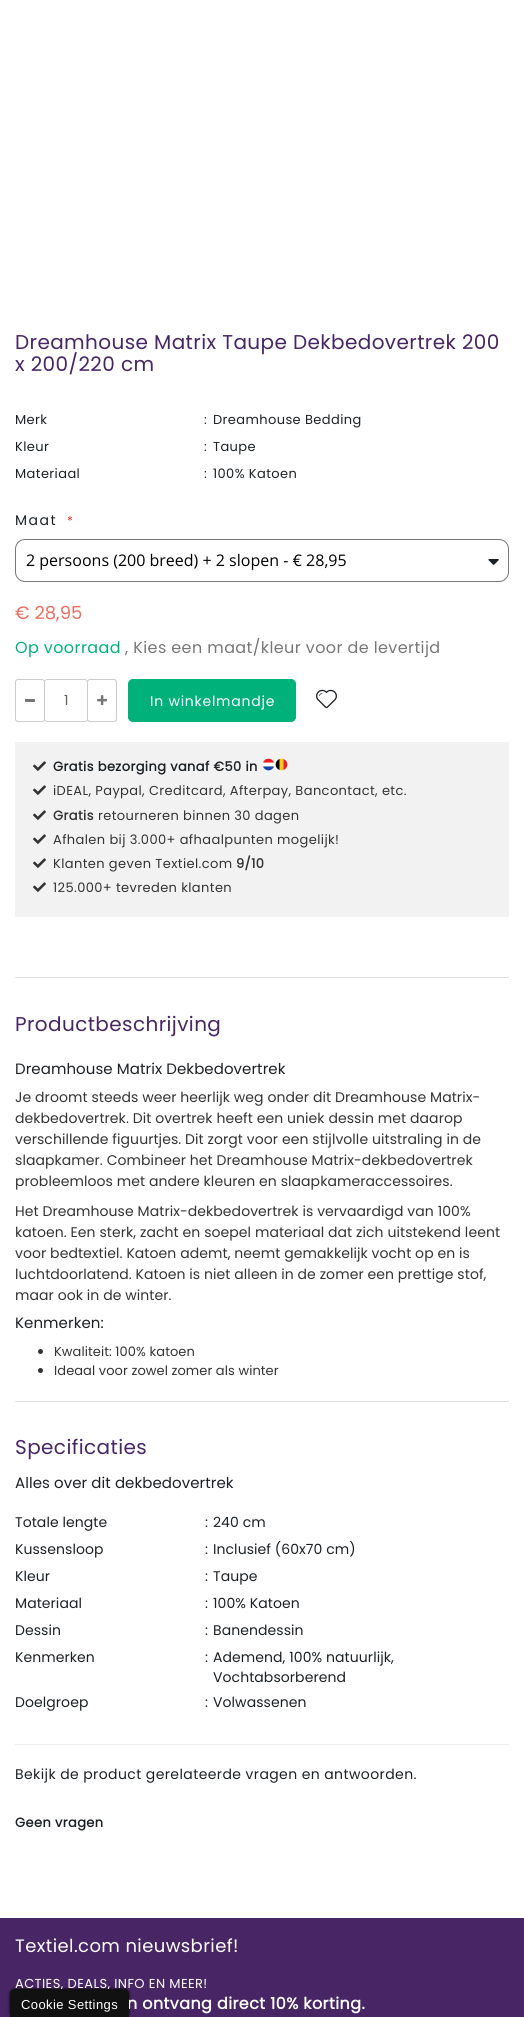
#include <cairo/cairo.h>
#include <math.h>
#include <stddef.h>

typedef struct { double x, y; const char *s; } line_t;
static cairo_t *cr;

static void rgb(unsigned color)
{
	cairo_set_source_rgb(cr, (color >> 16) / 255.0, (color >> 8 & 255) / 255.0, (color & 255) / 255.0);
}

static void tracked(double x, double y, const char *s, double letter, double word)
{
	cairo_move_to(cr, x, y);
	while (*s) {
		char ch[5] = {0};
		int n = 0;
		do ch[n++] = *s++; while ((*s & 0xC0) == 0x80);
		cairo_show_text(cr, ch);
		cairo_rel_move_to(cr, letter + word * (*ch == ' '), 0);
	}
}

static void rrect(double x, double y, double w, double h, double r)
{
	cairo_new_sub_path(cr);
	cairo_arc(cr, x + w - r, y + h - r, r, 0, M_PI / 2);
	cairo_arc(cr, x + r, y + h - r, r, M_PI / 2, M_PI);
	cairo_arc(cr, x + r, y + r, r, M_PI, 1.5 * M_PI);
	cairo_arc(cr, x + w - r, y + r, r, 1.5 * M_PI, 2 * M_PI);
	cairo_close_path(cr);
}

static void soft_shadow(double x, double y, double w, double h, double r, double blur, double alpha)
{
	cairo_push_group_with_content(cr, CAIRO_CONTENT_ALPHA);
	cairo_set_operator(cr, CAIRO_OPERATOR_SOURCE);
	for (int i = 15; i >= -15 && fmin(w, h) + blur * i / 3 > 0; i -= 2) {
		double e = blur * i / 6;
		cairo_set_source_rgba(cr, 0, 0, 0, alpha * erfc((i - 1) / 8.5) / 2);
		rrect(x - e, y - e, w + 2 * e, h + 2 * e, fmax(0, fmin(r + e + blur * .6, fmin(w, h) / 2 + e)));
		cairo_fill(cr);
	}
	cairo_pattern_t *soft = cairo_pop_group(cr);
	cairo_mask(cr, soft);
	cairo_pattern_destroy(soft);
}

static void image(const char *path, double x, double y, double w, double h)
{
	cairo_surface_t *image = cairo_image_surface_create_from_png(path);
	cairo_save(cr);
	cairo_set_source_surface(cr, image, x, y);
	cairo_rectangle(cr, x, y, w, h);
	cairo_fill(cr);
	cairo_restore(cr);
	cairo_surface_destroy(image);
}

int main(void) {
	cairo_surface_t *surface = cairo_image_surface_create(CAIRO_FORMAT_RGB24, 524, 2017);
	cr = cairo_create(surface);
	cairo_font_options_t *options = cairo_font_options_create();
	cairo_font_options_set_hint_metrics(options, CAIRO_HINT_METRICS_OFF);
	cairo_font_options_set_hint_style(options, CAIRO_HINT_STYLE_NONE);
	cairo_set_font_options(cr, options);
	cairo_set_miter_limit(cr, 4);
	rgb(0xffffff);
	cairo_paint(cr);
	image("img/1.png", 488, 559, 11, 6);
	rrect(15.5, 539.5, 493, 42, 9.5);
	rgb(0x777777);
	cairo_set_line_width(cr, 1);
	cairo_stroke(cr);
	rrect(44.5, 679.5, 43, 42, 2.5);
	rgb(0xcccccc);
	cairo_stroke(cr);
	rrect(15.5, 679.5, 29, 42, 2.5);
	cairo_stroke(cr);
	rgb(0x777777);
	cairo_rectangle(cr, 25, 699, 10, 3);
	cairo_fill(cr);
	rrect(87.5, 679.5, 29, 42, 2.5);
	rgb(0xcccccc);
	cairo_stroke(cr);
	image("img/2.png", 97, 695, 10, 11);
	rgb(0x00b27a);
	rrect(128.5, 679.5, 167, 42, 4.5);
	cairo_fill_preserve(cr);
	cairo_stroke(cr);
	image("img/3.png", 316, 689, 21, 20);
	rgb(0xf2f2f2);
	cairo_rectangle(cr, 15, 742, 494, 175);
	cairo_fill(cr);
	image("img/4.png", 33, 761, 13, 10);
	image("img/5.png", 262, 758, 13, 13);
	image("img/6.png", 275, 758, 13, 13);
	image("img/4.png", 33, 785, 13, 10);
	image("img/4.png", 33, 810, 13, 10);
	image("img/4.png", 33, 834, 13, 10);
	image("img/4.png", 33, 858, 13, 10);
	image("img/4.png", 33, 882, 13, 10);
	rgb(0xeeeeee);
	cairo_rectangle(cr, 15, 1744, 494, 1);
	cairo_fill(cr);
	rgb(0xdddddd);
	cairo_rectangle(cr, 15, 977, 494, 1);
	cairo_fill(cr);
	rgb(0x333333);
	cairo_arc(cr, 40.5, 1351.5, 2.5, 0, 2 * M_PI);
	cairo_fill(cr);
	cairo_arc(cr, 40.5, 1370.5, 2.5, 0, 2 * M_PI);
	cairo_fill(cr);
	rgb(0xdddddd);
	cairo_rectangle(cr, 15, 1401, 494, 1);
	cairo_fill(cr);
	rgb(0x482565);
	cairo_rectangle(cr, 0, 1918, 524, 99);
	cairo_fill(cr);
	rgb(0x000000);
	soft_shadow(10, 1989, 119, 28, 5, 1.5, 1);
	cairo_select_font_face(cr, "Poppins", CAIRO_FONT_SLANT_NORMAL, CAIRO_FONT_WEIGHT_NORMAL);
	cairo_set_font_size(cr, 20);
	rgb(0x482565);
	tracked(15, 349, "Dreamhouse Matrix Taupe Dekbedovertrek 200", 0.4, 0);
	tracked(15, 371, "x 200/220 cm", 0.4, 0);
	cairo_set_font_size(cr, 13);
	rgb(0x1c2125);
	{
		static const line_t items[] = {
			{15, 424, "Merk"},
			{204, 424, ":"},
			{213, 424, "Dreamhouse Bedding"},
			{15, 451, "Kleur"},
			{204, 451, ":"},
			{213, 451, "Taupe"},
			{15, 478, "Materiaal"},
			{204, 478, ":"},
			{213, 478, "100% Katoen"},
		};
		for (size_t i = 0; i < sizeof items / sizeof *items; i++) {
			tracked(items[i].x, items[i].y, items[i].s, 0.4, 0);
		}
	}
	cairo_set_font_size(cr, 14);
	tracked(15, 525, "Maat", 1.5, 0);
	cairo_set_font_size(cr, 12);
	rgb(0xe02b27);
	tracked(67, 525, "*", 1.5, 0);
	cairo_select_font_face(cr, "Open Sans", CAIRO_FONT_SLANT_NORMAL, CAIRO_FONT_WEIGHT_NORMAL);
	cairo_set_font_size(cr, 16);
	rgb(0x000000);
	cairo_move_to(cr, 26, 566);
	cairo_show_text(cr, "2 persoons (200 breed) + 2 slopen - € 28,95");
	cairo_select_font_face(cr, "Poppins", CAIRO_FONT_SLANT_NORMAL, CAIRO_FONT_WEIGHT_NORMAL);
	cairo_set_font_size(cr, 18);
	rgb(0xed6d61);
	cairo_move_to(cr, 15, 619);
	cairo_show_text(cr, "€ 28,95");
	cairo_set_font_size(cr, 16);
	rgb(0x00b27a);
	tracked(15, 653, "Op voorraad", 0.4, 0);
	rgb(0x777777);
	tracked(125, 653, ", Kies een maat/kleur voor de levertijd", 0.4, 0);
	cairo_set_font_size(cr, 14);
	rgb(0x61605a);
	cairo_move_to(cr, 64, 705);
	cairo_show_text(cr, "1");
	rgb(0xffffff);
	tracked(150, 706, "In winkelmandje", 0.75, 0);
	cairo_select_font_face(cr, "Poppins", CAIRO_FONT_SLANT_NORMAL, CAIRO_FONT_WEIGHT_BOLD);
	cairo_set_font_size(cr, 13);
	rgb(0x1c2125);
	tracked(53, 771, "Gratis bezorging vanaf €50 in", 0.4, 0);
	cairo_select_font_face(cr, "Poppins", CAIRO_FONT_SLANT_NORMAL, CAIRO_FONT_WEIGHT_NORMAL);
	rgb(0x333333);
	tracked(53, 795, "iDEAL, Paypal, Creditcard, Afterpay, Bancontact, etc.", 0.4, 0);
	cairo_select_font_face(cr, "Poppins", CAIRO_FONT_SLANT_NORMAL, CAIRO_FONT_WEIGHT_BOLD);
	tracked(53, 820, "Gratis", 0.4, 0);
	cairo_select_font_face(cr, "Poppins", CAIRO_FONT_SLANT_NORMAL, CAIRO_FONT_WEIGHT_NORMAL);
	{
		static const line_t items[] = {
			{98, 820, "retourneren binnen 30 dagen"},
			{53, 844, "Afhalen bij 3.000+ afhaalpunten mogelijk!"},
			{53, 868, "Klanten geven Textiel.com"},
		};
		for (size_t i = 0; i < sizeof items / sizeof *items; i++) {
			tracked(items[i].x, items[i].y, items[i].s, 0.4, 0);
		}
	}
	cairo_select_font_face(cr, "Poppins", CAIRO_FONT_SLANT_NORMAL, CAIRO_FONT_WEIGHT_BOLD);
	tracked(236, 868, "9/10", 0.4, 0);
	cairo_select_font_face(cr, "Poppins", CAIRO_FONT_SLANT_NORMAL, CAIRO_FONT_WEIGHT_NORMAL);
	tracked(53, 892, "125.000+ tevreden klanten", 0.4, 0);
	cairo_set_font_size(cr, 20);
	rgb(0x482565);
	tracked(15, 1031, "Productbeschrijving", 0.4, 0);
	cairo_set_font_size(cr, 15);
	rgb(0x1c2125);
	tracked(15, 1074, "Dreamhouse Matrix Dekbedovertrek", 0.07, 0);
	cairo_set_font_size(cr, 14);
	rgb(0x333333);
	{
		static const line_t items[] = {
			{15, 1102, "Je droomt steeds weer heerlijk weg onder dit Dreamhouse Matrix-"},
			{15, 1123, "dekbedovertrek. Dit overtrek heeft een uniek dessin met daarop"},
			{15, 1144, "verschillende figuurtjes. Dit zorgt voor een stijlvolle uitstraling in de"},
			{15, 1165, "slaapkamer. Combineer het Dreamhouse Matrix-dekbedovertrek"},
			{15, 1186, "probleemloos met andere kleuren en slaapkameraccessoires."},
			{15, 1216, "Het Dreamhouse Matrix-dekbedovertrek is vervaardigd van 100%"},
			{15, 1237, "katoen. Een sterk, zacht en soepel materiaal dat zich uitstekend leent"},
			{15, 1258, "voor bedtextiel. Katoen ademt, neemt gemakkelijk vocht op en is"},
			{15, 1279, "luchtdoorlatend. Katoen is niet alleen in de zomer een prettige stof,"},
			{15, 1300, "maar ook in de winter."},
		};
		for (size_t i = 0; i < sizeof items / sizeof *items; i++) {
			tracked(items[i].x, items[i].y, items[i].s, 0.07, 0);
		}
	}
	cairo_set_font_size(cr, 15);
	rgb(0x1c2125);
	tracked(15, 1328, "Kenmerken:", 0.07, 0);
	cairo_set_font_size(cr, 13);
	rgb(0x333333);
	tracked(54, 1356, "Kwaliteit: 100% katoen", 0.07, 0);
	tracked(54, 1375, "Ideaal voor zowel zomer als winter", 0.07, 0);
	cairo_set_font_size(cr, 20);
	rgb(0x482565);
	tracked(15, 1454, "Specificaties", 0.4, 0);
	cairo_set_font_size(cr, 15);
	rgb(0x1c2125);
	tracked(15, 1488, "Alles over dit dekbedovertrek", 0.07, 0);
	cairo_set_font_size(cr, 14);
	{
		static const line_t items[] = {
			{15, 1527, "Totale lengte"},
			{205, 1527, ":"},
			{213, 1527, "240 cm"},
			{15, 1554, "Kussensloop"},
			{205, 1554, ":"},
			{213, 1554, "Inclusief (60x70 cm)"},
			{15, 1581, "Kleur"},
			{205, 1581, ":"},
			{213, 1581, "Taupe"},
			{15, 1608, "Materiaal"},
			{205, 1608, ":"},
			{213, 1608, "100% Katoen"},
			{15, 1635, "Dessin"},
			{205, 1635, ":"},
			{213, 1635, "Banendessin"},
			{15, 1662, "Kenmerken"},
			{205, 1662, ":"},
			{213, 1662, "Ademend, 100% natuurlijk,"},
			{213, 1682, "Vochtabsorberend"},
			{15, 1707, "Doelgroep"},
			{205, 1707, ":"},
			{213, 1707, "Volwassenen"},
		};
		for (size_t i = 0; i < sizeof items / sizeof *items; i++) {
			tracked(items[i].x, items[i].y, items[i].s, 0.07, 0);
		}
	}
	tracked(15, 1779, "Bekijk de product gerelateerde vragen en antwoorden.", 0.4, 0);
	cairo_select_font_face(cr, "Poppins", CAIRO_FONT_SLANT_NORMAL, CAIRO_FONT_WEIGHT_BOLD);
	cairo_set_font_size(cr, 13);
	tracked(15, 1827, "Geen vragen", 0.4, 0);
	cairo_select_font_face(cr, "Poppins", CAIRO_FONT_SLANT_NORMAL, CAIRO_FONT_WEIGHT_NORMAL);
	cairo_set_font_size(cr, 18);
	rgb(0xffffff);
	tracked(15, 1952, "Textiel.com nieuwsbrief!", 0.4, 0);
	cairo_set_font_size(cr, 13);
	tracked(15, 1988, "ACTIES, DEALS, INFO EN MEER!", 0.4, 0);
	cairo_select_font_face(cr, "Poppins", CAIRO_FONT_SLANT_NORMAL, CAIRO_FONT_WEIGHT_BOLD);
	cairo_set_font_size(cr, 16);
	tracked(127, 2009, "n ontvang direct 10% korting.", 0.4, 0);
	rgb(0x111111);
	cairo_new_path(cr);
	cairo_move_to(cr, 15, 1989);
	cairo_line_to(cr, 124, 1989);
	cairo_curve_to(cr, 127, 1989, 129, 1991, 129, 1994);
	cairo_line_to(cr, 129, 2017);
	cairo_line_to(cr, 10, 2017);
	cairo_line_to(cr, 10, 1994);
	cairo_curve_to(cr, 10, 1991, 12, 1989, 15, 1989);
	cairo_close_path(cr);
	cairo_fill(cr);
	cairo_select_font_face(cr, "Liberation Sans", CAIRO_FONT_SLANT_NORMAL, CAIRO_FONT_WEIGHT_NORMAL);
	cairo_set_font_size(cr, 13);
	rgb(0xffffff);
	tracked(21, 2009, "Cookie Settings", 0.4, 0);
	cairo_surface_write_to_png(surface, "page.png");
	cairo_font_options_destroy(options);
	cairo_destroy(cr);
	cairo_surface_destroy(surface);
	return 0;
}
